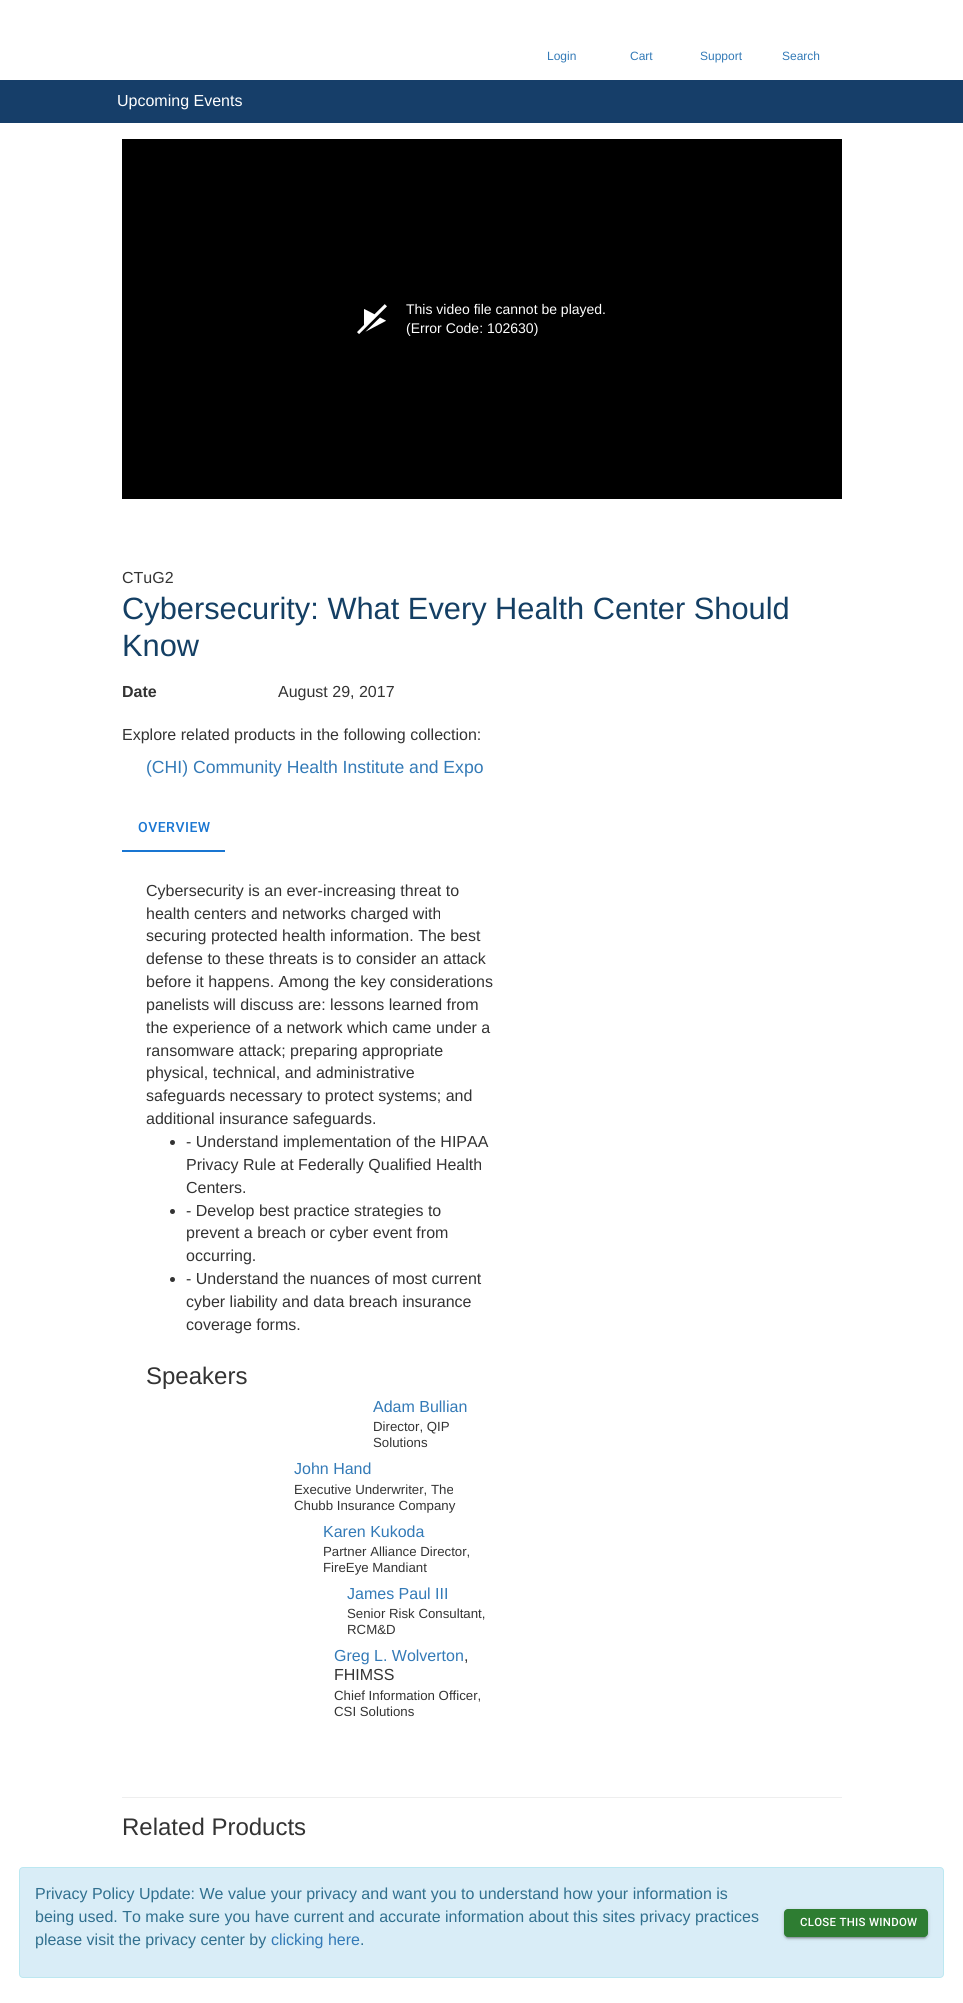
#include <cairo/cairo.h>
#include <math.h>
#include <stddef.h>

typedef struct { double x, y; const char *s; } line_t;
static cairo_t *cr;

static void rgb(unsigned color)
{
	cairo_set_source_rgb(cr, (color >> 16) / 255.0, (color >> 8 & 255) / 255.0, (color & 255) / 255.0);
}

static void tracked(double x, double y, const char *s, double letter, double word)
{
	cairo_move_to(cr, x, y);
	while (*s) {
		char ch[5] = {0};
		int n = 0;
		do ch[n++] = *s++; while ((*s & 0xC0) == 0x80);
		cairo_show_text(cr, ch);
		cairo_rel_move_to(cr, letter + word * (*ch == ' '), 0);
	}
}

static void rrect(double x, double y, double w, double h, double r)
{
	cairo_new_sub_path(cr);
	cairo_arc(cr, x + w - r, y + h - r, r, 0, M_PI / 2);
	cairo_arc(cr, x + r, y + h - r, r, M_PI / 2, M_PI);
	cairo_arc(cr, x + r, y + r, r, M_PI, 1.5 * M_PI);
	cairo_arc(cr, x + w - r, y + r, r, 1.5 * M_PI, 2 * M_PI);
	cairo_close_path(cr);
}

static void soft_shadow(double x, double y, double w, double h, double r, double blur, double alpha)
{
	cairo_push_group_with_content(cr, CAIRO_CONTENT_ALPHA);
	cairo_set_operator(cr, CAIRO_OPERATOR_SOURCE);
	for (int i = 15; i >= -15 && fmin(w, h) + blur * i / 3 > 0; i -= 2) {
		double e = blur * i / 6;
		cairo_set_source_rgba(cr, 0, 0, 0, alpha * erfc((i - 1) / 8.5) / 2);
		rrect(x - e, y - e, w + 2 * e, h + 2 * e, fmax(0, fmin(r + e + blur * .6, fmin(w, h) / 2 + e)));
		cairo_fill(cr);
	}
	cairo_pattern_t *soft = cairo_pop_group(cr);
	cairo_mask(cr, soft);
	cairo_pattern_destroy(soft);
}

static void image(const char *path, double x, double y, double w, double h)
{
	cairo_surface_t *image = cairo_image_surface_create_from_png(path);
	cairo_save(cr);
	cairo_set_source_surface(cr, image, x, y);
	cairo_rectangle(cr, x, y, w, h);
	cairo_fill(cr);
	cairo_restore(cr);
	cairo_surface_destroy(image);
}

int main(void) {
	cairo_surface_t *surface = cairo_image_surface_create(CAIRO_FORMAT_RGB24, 963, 2003);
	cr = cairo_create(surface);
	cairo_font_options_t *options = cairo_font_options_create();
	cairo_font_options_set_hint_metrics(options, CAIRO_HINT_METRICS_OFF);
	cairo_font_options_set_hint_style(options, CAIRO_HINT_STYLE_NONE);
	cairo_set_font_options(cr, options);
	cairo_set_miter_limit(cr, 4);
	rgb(0xffffff);
	cairo_paint(cr);
	rgb(0x163e69);
	cairo_rectangle(cr, 0, 80, 963, 43);
	cairo_fill(cr);
	rgb(0x000000);
	cairo_rectangle(cr, 122, 139, 720, 360);
	cairo_fill(cr);
	image("img/1.png", 357, 304, 30, 30);
	rgb(0x1976d2);
	cairo_rectangle(cr, 122, 850, 103, 2);
	cairo_fill(cr);
	rgb(0x333333);
	cairo_arc(cr, 172.5, 1142.5, 2.5, 0, 2 * M_PI);
	cairo_fill(cr);
	cairo_arc(cr, 172.5, 1211.5, 2.5, 0, 2 * M_PI);
	cairo_fill(cr);
	cairo_arc(cr, 172.5, 1279.5, 2.5, 0, 2 * M_PI);
	cairo_fill(cr);
	rgb(0xeeeeee);
	cairo_rectangle(cr, 122, 1797, 720, 1);
	cairo_fill(cr);
	rgb(0xd9edf7);
	rrect(19.5, 1867.5, 924, 110, 3.5);
	cairo_fill_preserve(cr);
	rgb(0xbce8f1);
	cairo_set_line_width(cr, 1);
	cairo_stroke(cr);
	rgb(0x000000);
	soft_shadow(784, 1910, 144, 28, 4, 2.5, 0.12);
	soft_shadow(784, 1911, 144, 28, 4, 1, 0.14);
	soft_shadow(786, 1914, 140, 24, 2, 0.5, 0.2);
	rgb(0x2e7d32);
	rrect(784, 1909, 144, 28, 4);
	cairo_fill(cr);
	cairo_select_font_face(cr, "Liberation Sans", CAIRO_FONT_SLANT_NORMAL, CAIRO_FONT_WEIGHT_NORMAL);
	cairo_set_font_size(cr, 12);
	rgb(0x337ab7);
	{
		static const line_t items[] = {
			{547, 60, "Login"},
			{630, 60, "Cart"},
			{700, 60, "Support"},
			{782, 60, "Search"},
		};
		for (size_t i = 0; i < sizeof items / sizeof *items; i++) {
			cairo_move_to(cr, items[i].x, items[i].y);
			cairo_show_text(cr, items[i].s);
		}
	}
	cairo_set_font_size(cr, 16);
	rgb(0xffffff);
	cairo_move_to(cr, 117, 106);
	cairo_show_text(cr, "Upcoming Events");
	cairo_set_font_size(cr, 14);
	cairo_move_to(cr, 406, 314);
	cairo_show_text(cr, "This video file cannot be played.");
	cairo_move_to(cr, 406, 333);
	cairo_show_text(cr, "(Error Code: 102630)");
	cairo_set_font_size(cr, 16);
	rgb(0x333333);
	cairo_move_to(cr, 122, 583);
	cairo_show_text(cr, "CTuG2");
	cairo_set_font_size(cr, 30.8);
	rgb(0x143f64);
	cairo_move_to(cr, 122, 619);
	cairo_show_text(cr, "Cybersecurity: What Every Health Center Should");
	cairo_move_to(cr, 122, 656);
	cairo_show_text(cr, "Know");
	cairo_select_font_face(cr, "Liberation Sans", CAIRO_FONT_SLANT_NORMAL, CAIRO_FONT_WEIGHT_BOLD);
	cairo_set_font_size(cr, 16);
	rgb(0x333333);
	cairo_move_to(cr, 122, 697);
	cairo_show_text(cr, "Date");
	cairo_select_font_face(cr, "Liberation Sans", CAIRO_FONT_SLANT_NORMAL, CAIRO_FONT_WEIGHT_NORMAL);
	cairo_move_to(cr, 278, 697);
	cairo_show_text(cr, "August 29, 2017");
	cairo_move_to(cr, 122, 740);
	cairo_show_text(cr, "Explore related products in the following collection:");
	cairo_set_font_size(cr, 17.6);
	rgb(0x337ab7);
	cairo_move_to(cr, 146, 773);
	cairo_show_text(cr, "(CHI) Community Health Institute and Expo");
	cairo_select_font_face(cr, "Roboto Medium", CAIRO_FONT_SLANT_NORMAL, CAIRO_FONT_WEIGHT_NORMAL);
	cairo_set_font_size(cr, 14);
	rgb(0x1976d2);
	tracked(138, 832, "OVERVIEW", 0.5, 0);
	cairo_select_font_face(cr, "Liberation Sans", CAIRO_FONT_SLANT_NORMAL, CAIRO_FONT_WEIGHT_NORMAL);
	cairo_set_font_size(cr, 16);
	rgb(0x333333);
	{
		static const line_t items[] = {
			{146, 896, "Cybersecurity is an ever-increasing threat to"},
			{146, 919, "health centers and networks charged with"},
			{146, 941, "securing protected health information. The best"},
			{146, 964, "defense to these threats is to consider an attack"},
			{146, 987, "before it happens. Among the key considerations"},
			{146, 1010, "panelists will discuss are: lessons learned from"},
			{146, 1033, "the experience of a network which came under a"},
			{146, 1056, "ransomware attack; preparing appropriate"},
			{146, 1078, "physical, technical, and administrative"},
			{146, 1101, "safeguards necessary to protect systems; and"},
			{146, 1124, "additional insurance safeguards."},
			{186, 1147, "- Understand implementation of the HIPAA"},
			{186, 1170, "Privacy Rule at Federally Qualified Health"},
			{186, 1193, "Centers."},
			{186, 1216, "- Develop best practice strategies to"},
			{186, 1238, "prevent a breach or cyber event from"},
			{186, 1261, "occurring."},
			{186, 1284, "- Understand the nuances of most current"},
			{186, 1307, "cyber liability and data breach insurance"},
			{186, 1330, "coverage forms."},
		};
		for (size_t i = 0; i < sizeof items / sizeof *items; i++) {
			cairo_move_to(cr, items[i].x, items[i].y);
			cairo_show_text(cr, items[i].s);
		}
	}
	cairo_set_font_size(cr, 24);
	cairo_move_to(cr, 146, 1384);
	cairo_show_text(cr, "Speakers");
	cairo_set_font_size(cr, 16);
	rgb(0x337ab7);
	cairo_move_to(cr, 373, 1412);
	cairo_show_text(cr, "Adam Bullian");
	cairo_set_font_size(cr, 13.25);
	rgb(0x333333);
	cairo_move_to(cr, 373, 1431);
	cairo_show_text(cr, "Director, QIP");
	cairo_move_to(cr, 373, 1447);
	cairo_show_text(cr, "Solutions");
	cairo_set_font_size(cr, 16);
	rgb(0x337ab7);
	cairo_move_to(cr, 294, 1474);
	cairo_show_text(cr, "John Hand");
	cairo_set_font_size(cr, 13.25);
	rgb(0x333333);
	cairo_move_to(cr, 294, 1494);
	cairo_show_text(cr, "Executive Underwriter, The");
	cairo_move_to(cr, 294, 1510);
	cairo_show_text(cr, "Chubb Insurance Company");
	cairo_set_font_size(cr, 16);
	rgb(0x337ab7);
	cairo_move_to(cr, 323, 1537);
	cairo_show_text(cr, "Karen Kukoda");
	cairo_set_font_size(cr, 13.25);
	rgb(0x333333);
	cairo_move_to(cr, 323, 1556);
	cairo_show_text(cr, "Partner Alliance Director,");
	cairo_move_to(cr, 323, 1572);
	cairo_show_text(cr, "FireEye Mandiant");
	cairo_set_font_size(cr, 16);
	rgb(0x337ab7);
	cairo_move_to(cr, 347, 1599);
	cairo_show_text(cr, "James Paul III");
	cairo_set_font_size(cr, 13.25);
	rgb(0x333333);
	cairo_move_to(cr, 347, 1618);
	cairo_show_text(cr, "Senior Risk Consultant,");
	cairo_move_to(cr, 347, 1634);
	cairo_show_text(cr, "RCM&D");
	cairo_set_font_size(cr, 16);
	rgb(0x337ab7);
	cairo_move_to(cr, 334, 1661);
	cairo_show_text(cr, "Greg L. Wolverton");
	rgb(0x333333);
	cairo_move_to(cr, 464, 1661);
	cairo_show_text(cr, ",");
	cairo_move_to(cr, 334, 1680);
	cairo_show_text(cr, "FHIMSS");
	cairo_set_font_size(cr, 13.25);
	cairo_move_to(cr, 334, 1700);
	cairo_show_text(cr, "Chief Information Officer,");
	cairo_move_to(cr, 334, 1716);
	cairo_show_text(cr, "CSI Solutions");
	cairo_set_font_size(cr, 24);
	cairo_move_to(cr, 122, 1835);
	cairo_show_text(cr, "Related Products");
	cairo_set_font_size(cr, 16);
	rgb(0x31708f);
	{
		static const line_t items[] = {
			{35, 1899, "Privacy Policy Update: We value your privacy and want you to understand how your information is"},
			{35, 1922, "being used. To make sure you have current and accurate information about this sites privacy practices"},
			{35, 1945, "please visit the privacy center by"},
		};
		for (size_t i = 0; i < sizeof items / sizeof *items; i++) {
			cairo_move_to(cr, items[i].x, items[i].y);
			cairo_show_text(cr, items[i].s);
		}
	}
	rgb(0x337ab7);
	cairo_move_to(cr, 271, 1945);
	cairo_show_text(cr, "clicking here");
	rgb(0x31708f);
	cairo_move_to(cr, 360, 1945);
	cairo_show_text(cr, ".");
	cairo_select_font_face(cr, "Roboto Medium", CAIRO_FONT_SLANT_NORMAL, CAIRO_FONT_WEIGHT_NORMAL);
	cairo_set_font_size(cr, 11.4);
	rgb(0xffffff);
	tracked(800, 1926, "CLOSE THIS WINDOW", 0.3, 0);
	cairo_surface_write_to_png(surface, "page.png");
	cairo_font_options_destroy(options);
	cairo_destroy(cr);
	cairo_surface_destroy(surface);
	return 0;
}
